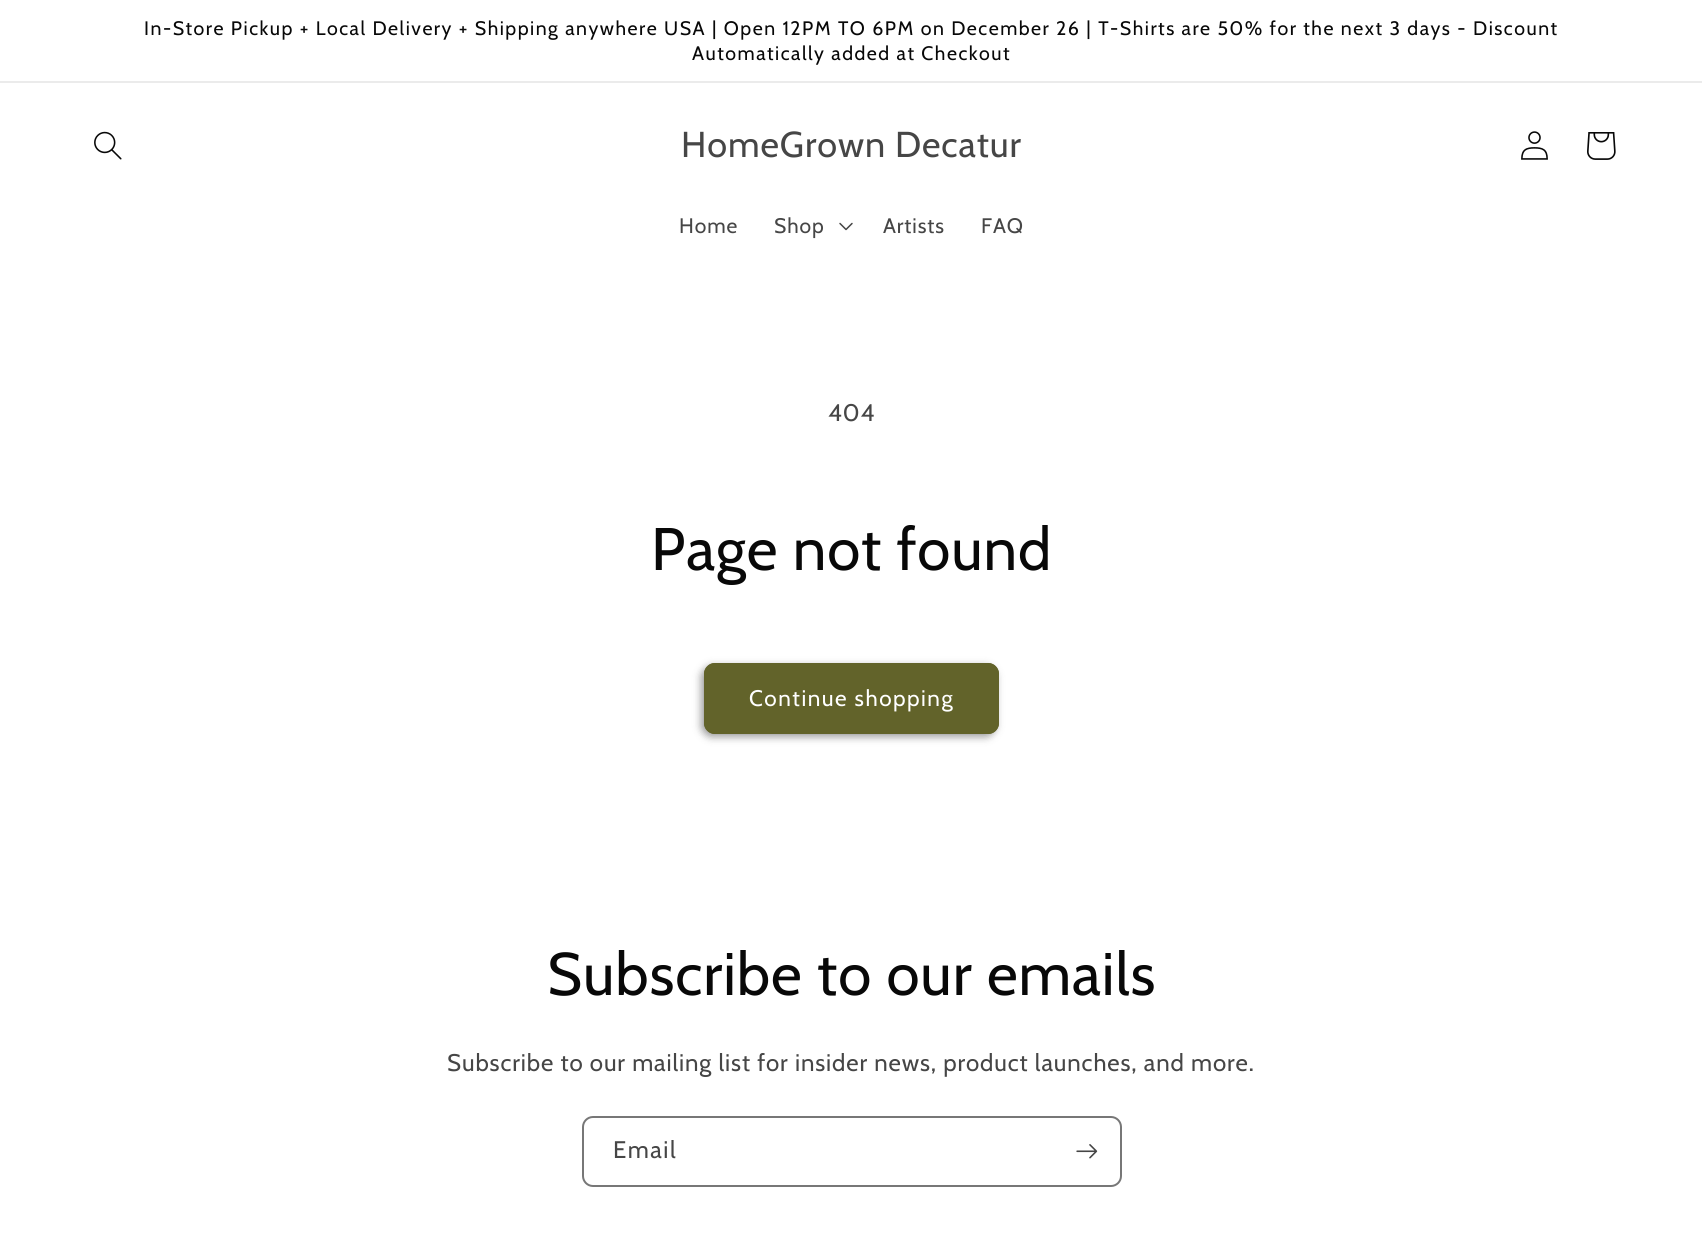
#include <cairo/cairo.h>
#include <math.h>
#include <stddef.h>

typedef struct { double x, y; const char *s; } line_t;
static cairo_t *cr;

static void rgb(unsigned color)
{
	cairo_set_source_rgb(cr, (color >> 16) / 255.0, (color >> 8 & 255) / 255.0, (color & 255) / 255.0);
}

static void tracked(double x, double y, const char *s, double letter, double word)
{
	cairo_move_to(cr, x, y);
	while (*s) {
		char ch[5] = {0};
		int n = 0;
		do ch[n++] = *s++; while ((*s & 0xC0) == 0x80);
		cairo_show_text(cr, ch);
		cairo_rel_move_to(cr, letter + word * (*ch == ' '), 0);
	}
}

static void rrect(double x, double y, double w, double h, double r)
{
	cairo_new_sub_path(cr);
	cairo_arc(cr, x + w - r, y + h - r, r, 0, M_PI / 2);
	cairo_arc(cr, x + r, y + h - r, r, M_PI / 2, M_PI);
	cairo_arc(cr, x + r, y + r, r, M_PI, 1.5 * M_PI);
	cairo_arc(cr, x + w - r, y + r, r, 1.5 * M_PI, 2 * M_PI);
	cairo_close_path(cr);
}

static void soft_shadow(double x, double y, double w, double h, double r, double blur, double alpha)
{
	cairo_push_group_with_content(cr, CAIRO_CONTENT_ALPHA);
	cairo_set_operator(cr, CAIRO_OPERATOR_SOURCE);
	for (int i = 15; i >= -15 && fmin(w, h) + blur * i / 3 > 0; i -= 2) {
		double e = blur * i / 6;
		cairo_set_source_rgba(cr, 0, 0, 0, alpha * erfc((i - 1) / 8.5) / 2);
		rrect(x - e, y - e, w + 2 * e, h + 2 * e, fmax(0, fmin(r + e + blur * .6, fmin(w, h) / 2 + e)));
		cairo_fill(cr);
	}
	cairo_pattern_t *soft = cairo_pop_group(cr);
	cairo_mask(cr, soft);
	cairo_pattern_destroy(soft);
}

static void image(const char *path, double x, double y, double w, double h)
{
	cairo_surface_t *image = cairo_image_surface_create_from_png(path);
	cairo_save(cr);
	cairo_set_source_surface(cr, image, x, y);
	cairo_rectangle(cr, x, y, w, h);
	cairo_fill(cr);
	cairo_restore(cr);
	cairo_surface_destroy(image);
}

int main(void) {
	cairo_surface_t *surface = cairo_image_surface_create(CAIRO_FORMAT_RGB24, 1702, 1256);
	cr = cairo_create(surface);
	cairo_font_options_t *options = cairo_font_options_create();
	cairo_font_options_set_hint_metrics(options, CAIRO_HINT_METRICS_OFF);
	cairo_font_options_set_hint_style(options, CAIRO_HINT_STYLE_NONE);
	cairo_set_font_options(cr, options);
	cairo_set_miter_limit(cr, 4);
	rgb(0xffffff);
	cairo_paint(cr);
	rgb(0xebebeb);
	cairo_rectangle(cr, 0, 81, 1702, 2);
	cairo_fill(cr);
	image("img/1.png", 94, 131, 28, 29);
	image("img/2.png", 1521, 131, 27, 29);
	image("img/3.png", 1587, 132, 29, 28);
	image("img/4.png", 839, 222, 14, 9);
	rgb(0x252525);
	soft_shadow(701, 666, 295, 71, 11, 4, 0.45);
	rgb(0x62632a);
	rrect(704, 663, 295, 71, 11);
	cairo_fill(cr);
	rrect(705, 664, 293, 69, 10);
	cairo_stroke(cr);
	rrect(583, 1117, 538, 69, 10);
	rgb(0x777777);
	cairo_stroke(cr);
	image("img/5.png", 1076, 1144, 22, 15);
	cairo_select_font_face(cr, "Cabin", CAIRO_FONT_SLANT_NORMAL, CAIRO_FONT_WEIGHT_NORMAL);
	cairo_set_font_size(cr, 19.5);
	rgb(0x080808);
	tracked(144, 35, "In-Store Pickup + Local Delivery + Shipping anywhere USA | Open 12PM TO 6PM on December 26 | T-Shirts are 50% for the next 3 days - Discount", 1.5, 0);
	tracked(692, 60, "Automatically added at Checkout", 1.5, 0);
	cairo_set_font_size(cr, 36);
	rgb(0x464646);
	tracked(681, 157, "HomeGrown Decatur", 0.9, 0);
	cairo_set_font_size(cr, 21);
	{
		static const line_t items[] = {
			{679, 233, "Home"},
			{774, 233, "Shop"},
			{883, 233, "Artists"},
			{981, 233, "FAQ"},
		};
		for (size_t i = 0; i < sizeof items / sizeof *items; i++) {
			tracked(items[i].x, items[i].y, items[i].s, 0.9, 0);
		}
	}
	cairo_set_font_size(cr, 24);
	tracked(828, 421, "404", 0.9, 0);
	cairo_set_font_size(cr, 60);
	rgb(0x080808);
	tracked(651, 570, "Page not found", 0.9, 0);
	cairo_set_font_size(cr, 22.5);
	rgb(0xffffff);
	tracked(749, 706, "Continue shopping", 1.5, 0);
	cairo_set_font_size(cr, 60);
	rgb(0x080808);
	tracked(547, 995, "Subscribe to our emails", 0.9, 0);
	cairo_set_font_size(cr, 24);
	rgb(0x464646);
	tracked(447, 1071, "Subscribe to our mailing list for insider news, product launches, and more.", 0.9, 0);
	tracked(613, 1158, "Email", 1.5, 0);
	cairo_surface_write_to_png(surface, "page.png");
	cairo_font_options_destroy(options);
	cairo_destroy(cr);
	cairo_surface_destroy(surface);
	return 0;
}
